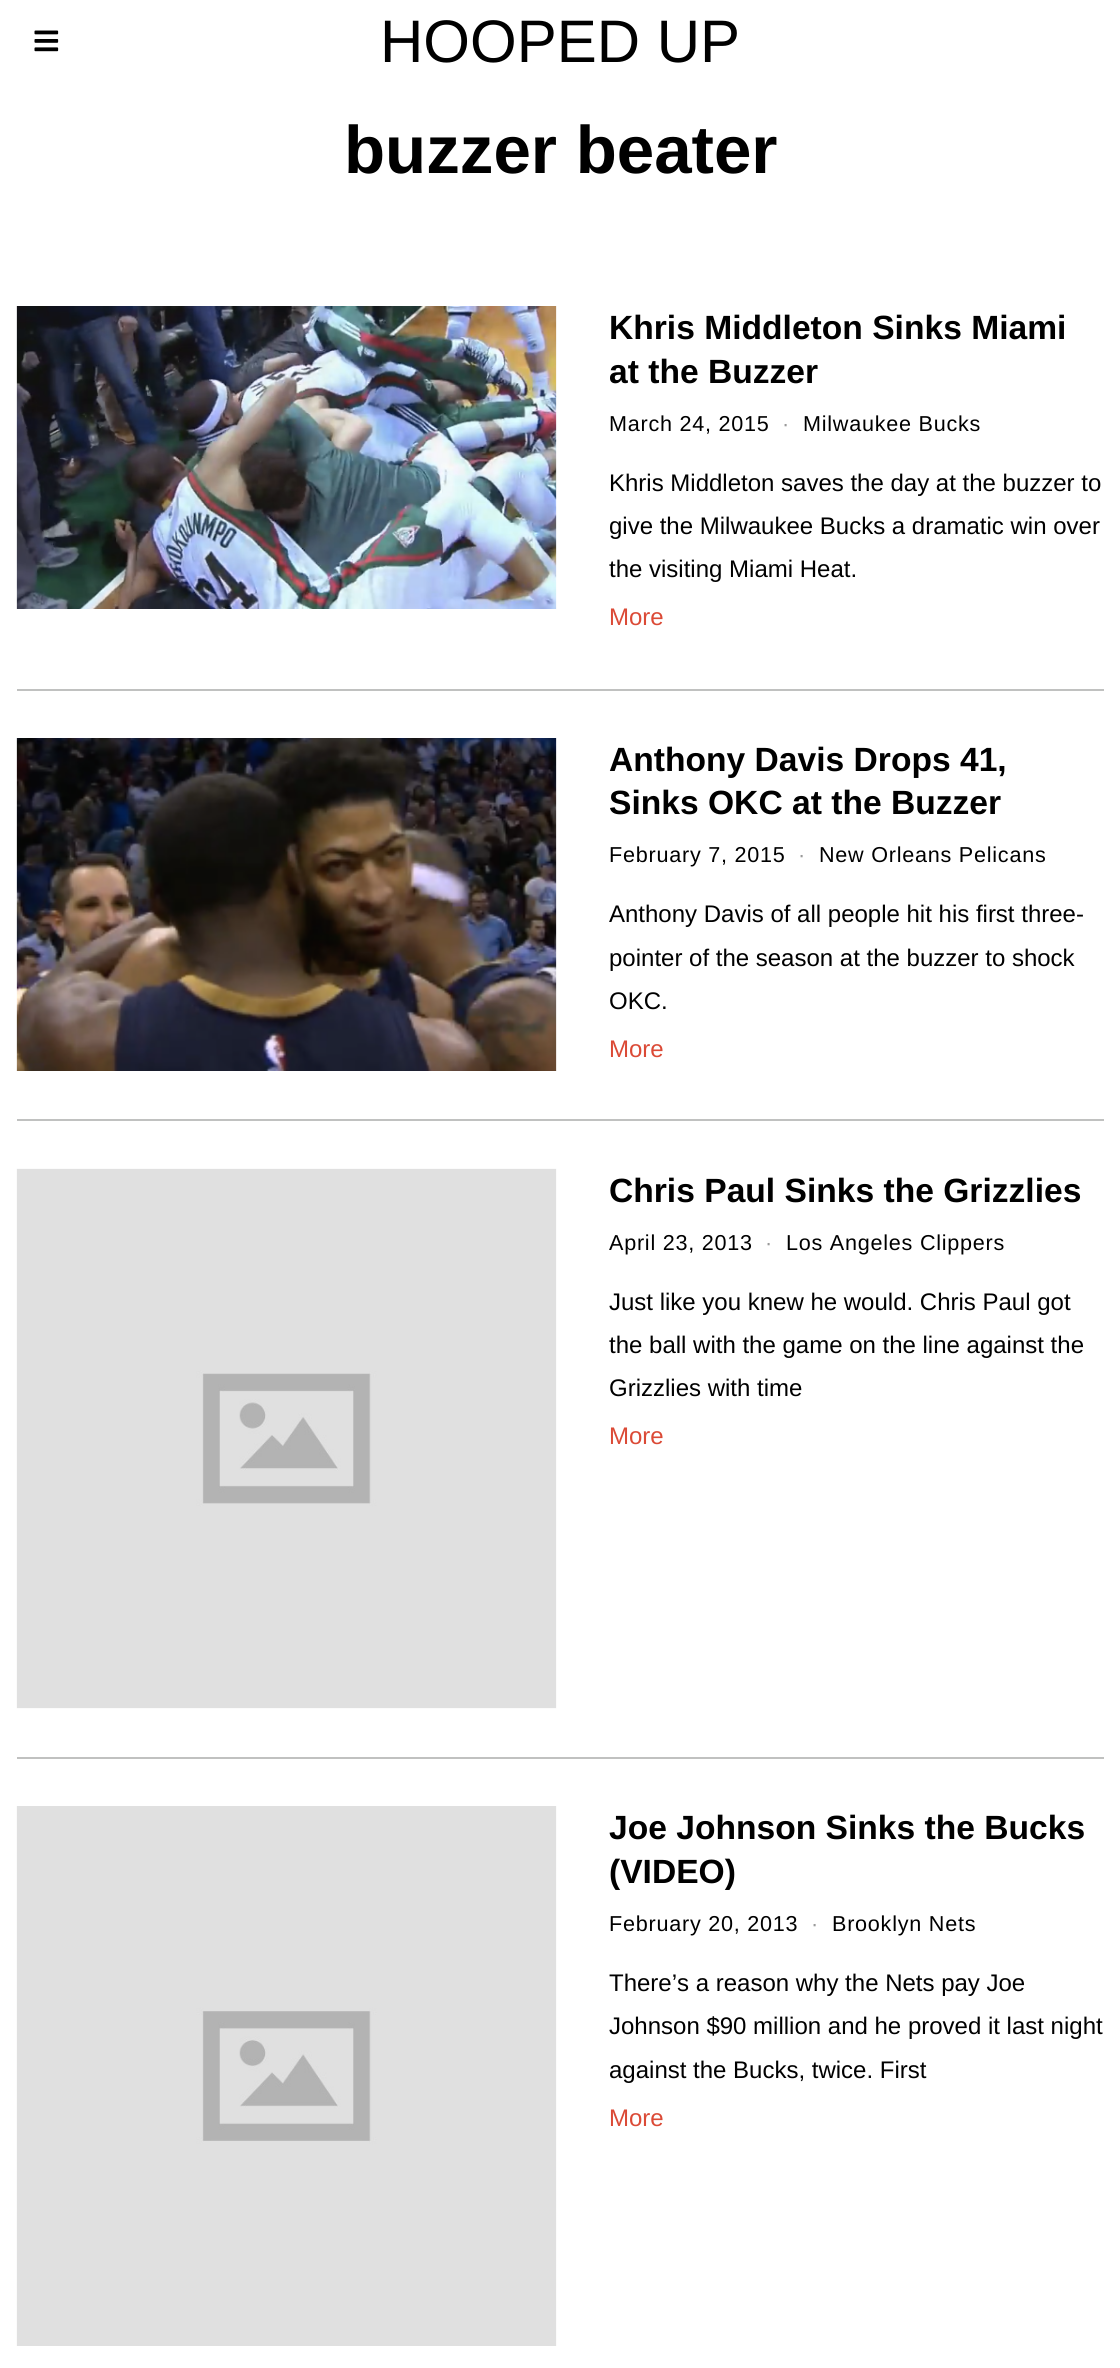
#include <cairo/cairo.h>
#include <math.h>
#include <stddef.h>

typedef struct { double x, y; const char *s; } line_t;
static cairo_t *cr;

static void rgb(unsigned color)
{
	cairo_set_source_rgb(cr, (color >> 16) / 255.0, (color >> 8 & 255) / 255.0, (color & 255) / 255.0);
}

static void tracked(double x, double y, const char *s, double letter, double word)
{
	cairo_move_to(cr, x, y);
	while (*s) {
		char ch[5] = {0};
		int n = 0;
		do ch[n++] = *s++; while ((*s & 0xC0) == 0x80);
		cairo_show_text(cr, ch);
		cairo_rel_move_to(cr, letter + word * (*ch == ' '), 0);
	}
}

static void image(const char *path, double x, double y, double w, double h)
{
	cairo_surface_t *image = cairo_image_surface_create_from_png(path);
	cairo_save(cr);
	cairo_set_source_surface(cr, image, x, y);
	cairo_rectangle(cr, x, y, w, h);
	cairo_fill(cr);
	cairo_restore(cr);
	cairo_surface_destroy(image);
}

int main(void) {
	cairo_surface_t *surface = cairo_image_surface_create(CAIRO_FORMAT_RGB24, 1120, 2368);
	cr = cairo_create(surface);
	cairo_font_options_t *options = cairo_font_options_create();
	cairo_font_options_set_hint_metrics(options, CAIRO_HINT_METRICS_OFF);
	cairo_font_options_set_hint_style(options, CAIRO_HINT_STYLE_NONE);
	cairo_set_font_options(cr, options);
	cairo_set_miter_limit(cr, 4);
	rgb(0xffffff);
	cairo_paint(cr);
	image("img/1.png", 34, 30, 25, 22);
	image("img/2.png", 16, 306, 541, 303);
	rgb(0xc0c1c0);
	cairo_rectangle(cr, 17, 689, 1087, 2);
	cairo_fill(cr);
	image("img/3.png", 16, 738, 541, 333);
	cairo_rectangle(cr, 17, 1119, 1087, 2);
	cairo_fill(cr);
	image("img/4.png", 16, 1168, 541, 541);
	cairo_rectangle(cr, 17, 1757, 1087, 2);
	cairo_fill(cr);
	image("img/5.png", 16, 1806, 541, 540);
	cairo_select_font_face(cr, "Liberation Sans", CAIRO_FONT_SLANT_NORMAL, CAIRO_FONT_WEIGHT_NORMAL);
	cairo_set_font_size(cr, 60);
	rgb(0x000000);
	cairo_move_to(cr, 380, 62);
	cairo_show_text(cr, "HOOPED UP");
	cairo_select_font_face(cr, "Liberation Sans", CAIRO_FONT_SLANT_NORMAL, CAIRO_FONT_WEIGHT_BOLD);
	cairo_set_font_size(cr, 67.25);
	cairo_move_to(cr, 344, 173);
	cairo_show_text(cr, "buzzer beater");
	cairo_set_font_size(cr, 33.6);
	cairo_move_to(cr, 609, 339);
	cairo_show_text(cr, "Khris Middleton Sinks Miami");
	cairo_move_to(cr, 609, 383);
	cairo_show_text(cr, "at the Buzzer");
	cairo_select_font_face(cr, "Liberation Sans", CAIRO_FONT_SLANT_NORMAL, CAIRO_FONT_WEIGHT_NORMAL);
	cairo_set_font_size(cr, 21.6);
	tracked(609, 431, "March 24, 2015", 0.75, 0);
	rgb(0x999999);
	tracked(782, 431, "·", 0.75, 0);
	rgb(0x000000);
	tracked(803, 431, "Milwaukee Bucks", 0.75, 0);
	cairo_set_font_size(cr, 24);
	{
		static const line_t items[] = {
			{609, 491, "Khris Middleton saves the day at the buzzer to"},
			{609, 534, "give the Milwaukee Bucks a dramatic win over"},
			{609, 577, "the visiting Miami Heat."},
		};
		for (size_t i = 0; i < sizeof items / sizeof *items; i++) {
			cairo_move_to(cr, items[i].x, items[i].y);
			cairo_show_text(cr, items[i].s);
		}
	}
	rgb(0xdb4a36);
	cairo_move_to(cr, 609, 625);
	cairo_show_text(cr, "More");
	cairo_select_font_face(cr, "Liberation Sans", CAIRO_FONT_SLANT_NORMAL, CAIRO_FONT_WEIGHT_BOLD);
	cairo_set_font_size(cr, 33.6);
	rgb(0x000000);
	cairo_move_to(cr, 609, 771);
	cairo_show_text(cr, "Anthony Davis Drops 41,");
	cairo_move_to(cr, 609, 814);
	cairo_show_text(cr, "Sinks OKC at the Buzzer");
	cairo_select_font_face(cr, "Liberation Sans", CAIRO_FONT_SLANT_NORMAL, CAIRO_FONT_WEIGHT_NORMAL);
	cairo_set_font_size(cr, 21.6);
	tracked(609, 862, "February 7, 2015", 0.75, 0);
	rgb(0x999999);
	tracked(798, 862, "·", 0.75, 0);
	rgb(0x000000);
	tracked(819, 862, "New Orleans Pelicans", 0.75, 0);
	cairo_set_font_size(cr, 24);
	{
		static const line_t items[] = {
			{609, 922, "Anthony Davis of all people hit his first three-"},
			{609, 966, "pointer of the season at the buzzer to shock"},
			{609, 1009, "OKC."},
		};
		for (size_t i = 0; i < sizeof items / sizeof *items; i++) {
			cairo_move_to(cr, items[i].x, items[i].y);
			cairo_show_text(cr, items[i].s);
		}
	}
	rgb(0xdb4a36);
	cairo_move_to(cr, 609, 1057);
	cairo_show_text(cr, "More");
	cairo_select_font_face(cr, "Liberation Sans", CAIRO_FONT_SLANT_NORMAL, CAIRO_FONT_WEIGHT_BOLD);
	cairo_set_font_size(cr, 33.6);
	rgb(0x000000);
	cairo_move_to(cr, 609, 1202);
	cairo_show_text(cr, "Chris Paul Sinks the Grizzlies");
	cairo_select_font_face(cr, "Liberation Sans", CAIRO_FONT_SLANT_NORMAL, CAIRO_FONT_WEIGHT_NORMAL);
	cairo_set_font_size(cr, 21.6);
	tracked(609, 1250, "April 23, 2013", 0.75, 0);
	rgb(0x999999);
	tracked(765, 1250, "·", 0.75, 0);
	rgb(0x000000);
	tracked(786, 1250, "Los Angeles Clippers", 0.75, 0);
	cairo_set_font_size(cr, 24);
	{
		static const line_t items[] = {
			{609, 1310, "Just like you knew he would. Chris Paul got"},
			{609, 1353, "the ball with the game on the line against the"},
			{609, 1396, "Grizzlies with time"},
		};
		for (size_t i = 0; i < sizeof items / sizeof *items; i++) {
			cairo_move_to(cr, items[i].x, items[i].y);
			cairo_show_text(cr, items[i].s);
		}
	}
	rgb(0xdb4a36);
	cairo_move_to(cr, 609, 1444);
	cairo_show_text(cr, "More");
	cairo_select_font_face(cr, "Liberation Sans", CAIRO_FONT_SLANT_NORMAL, CAIRO_FONT_WEIGHT_BOLD);
	cairo_set_font_size(cr, 33.6);
	rgb(0x000000);
	cairo_move_to(cr, 609, 1839);
	cairo_show_text(cr, "Joe Johnson Sinks the Bucks");
	cairo_move_to(cr, 609, 1883);
	cairo_show_text(cr, "(VIDEO)");
	cairo_select_font_face(cr, "Liberation Sans", CAIRO_FONT_SLANT_NORMAL, CAIRO_FONT_WEIGHT_NORMAL);
	cairo_set_font_size(cr, 21.6);
	tracked(609, 1931, "February 20, 2013", 0.75, 0);
	rgb(0x999999);
	tracked(811, 1931, "·", 0.75, 0);
	rgb(0x000000);
	tracked(832, 1931, "Brooklyn Nets", 0.75, 0);
	cairo_set_font_size(cr, 24);
	{
		static const line_t items[] = {
			{609, 1991, "There’s a reason why the Nets pay Joe"},
			{609, 2034, "Johnson $90 million and he proved it last night"},
			{609, 2078, "against the Bucks, twice. First"},
		};
		for (size_t i = 0; i < sizeof items / sizeof *items; i++) {
			cairo_move_to(cr, items[i].x, items[i].y);
			cairo_show_text(cr, items[i].s);
		}
	}
	rgb(0xdb4a36);
	cairo_move_to(cr, 609, 2126);
	cairo_show_text(cr, "More");
	cairo_surface_write_to_png(surface, "page.png");
	cairo_font_options_destroy(options);
	cairo_destroy(cr);
	cairo_surface_destroy(surface);
	return 0;
}
